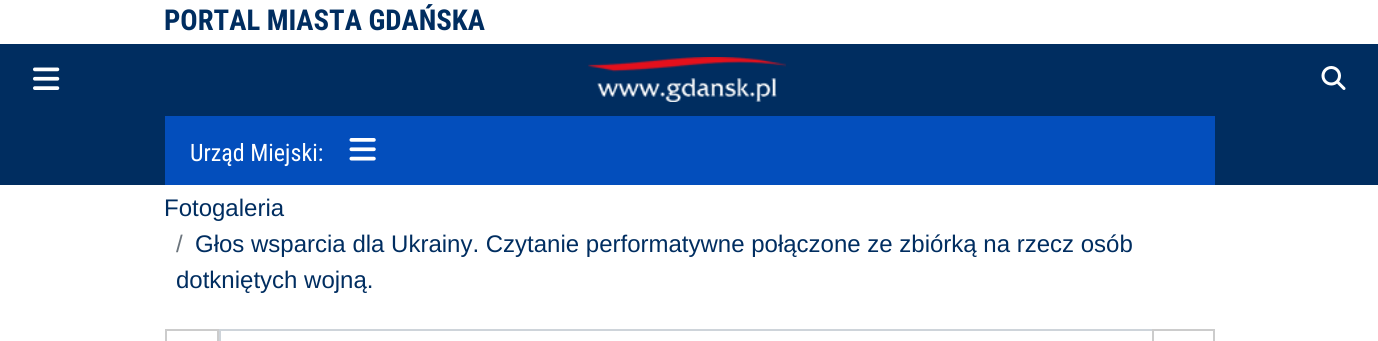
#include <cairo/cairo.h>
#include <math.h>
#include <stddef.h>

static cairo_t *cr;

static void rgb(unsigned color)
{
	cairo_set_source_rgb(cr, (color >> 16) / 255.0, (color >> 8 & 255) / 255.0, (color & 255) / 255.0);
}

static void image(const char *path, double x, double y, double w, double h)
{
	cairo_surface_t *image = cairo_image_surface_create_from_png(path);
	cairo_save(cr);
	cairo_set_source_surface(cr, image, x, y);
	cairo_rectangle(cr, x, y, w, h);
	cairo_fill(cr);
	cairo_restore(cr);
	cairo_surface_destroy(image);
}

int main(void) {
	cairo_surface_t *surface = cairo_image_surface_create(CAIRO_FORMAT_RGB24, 1378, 341);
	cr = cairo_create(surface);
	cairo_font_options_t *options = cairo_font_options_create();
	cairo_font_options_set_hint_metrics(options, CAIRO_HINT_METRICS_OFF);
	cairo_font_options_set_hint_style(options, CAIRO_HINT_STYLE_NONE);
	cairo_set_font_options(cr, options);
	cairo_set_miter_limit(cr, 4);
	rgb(0xffffff);
	cairo_paint(cr);
	rgb(0x002d60);
	cairo_rectangle(cr, 0, 44, 1378, 141);
	cairo_fill(cr);
	image("img/1.png", 33, 67, 27, 23);
	image("img/2.png", 588, 57, 198, 45);
	image("img/3.png", 1321, 66, 25, 24);
	rgb(0x034ebc);
	cairo_rectangle(cr, 165, 116, 1050, 69);
	cairo_fill(cr);
	image("img/4.png", 349, 138, 27, 23);
	cairo_rectangle(cr, 166, 330, 52, 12);
	rgb(0xcccccc);
	cairo_stroke(cr);
	cairo_rectangle(cr, 220, 330, 933, 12);
	rgb(0xced4da);
	cairo_stroke(cr);
	cairo_rectangle(cr, 1153, 330, 61, 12);
	rgb(0xcccccc);
	cairo_stroke(cr);
	cairo_select_font_face(cr, "Roboto Condensed", CAIRO_FONT_SLANT_NORMAL, CAIRO_FONT_WEIGHT_BOLD);
	cairo_set_font_size(cr, 28.75);
	rgb(0x002d60);
	cairo_move_to(cr, 164, 30);
	cairo_show_text(cr, "PORTAL MIASTA GDAŃSKA");
	cairo_select_font_face(cr, "Roboto Condensed", CAIRO_FONT_SLANT_NORMAL, CAIRO_FONT_WEIGHT_NORMAL);
	cairo_set_font_size(cr, 24);
	rgb(0xffffff);
	cairo_move_to(cr, 190, 161);
	cairo_show_text(cr, "Urząd Miejski:");
	cairo_select_font_face(cr, "Liberation Sans", CAIRO_FONT_SLANT_NORMAL, CAIRO_FONT_WEIGHT_NORMAL);
	rgb(0x002d60);
	cairo_move_to(cr, 164, 216);
	cairo_show_text(cr, "Fotogaleria");
	rgb(0x6c757d);
	cairo_move_to(cr, 176, 252);
	cairo_show_text(cr, "/");
	rgb(0x002d60);
	cairo_move_to(cr, 195, 252);
	cairo_show_text(cr, "Głos wsparcia dla Ukrainy. Czytanie performatywne połączone ze zbiórką na rzecz osób");
	cairo_move_to(cr, 176, 288);
	cairo_show_text(cr, "dotkniętych wojną.");
	cairo_surface_write_to_png(surface, "page.png");
	cairo_font_options_destroy(options);
	cairo_destroy(cr);
	cairo_surface_destroy(surface);
	return 0;
}
